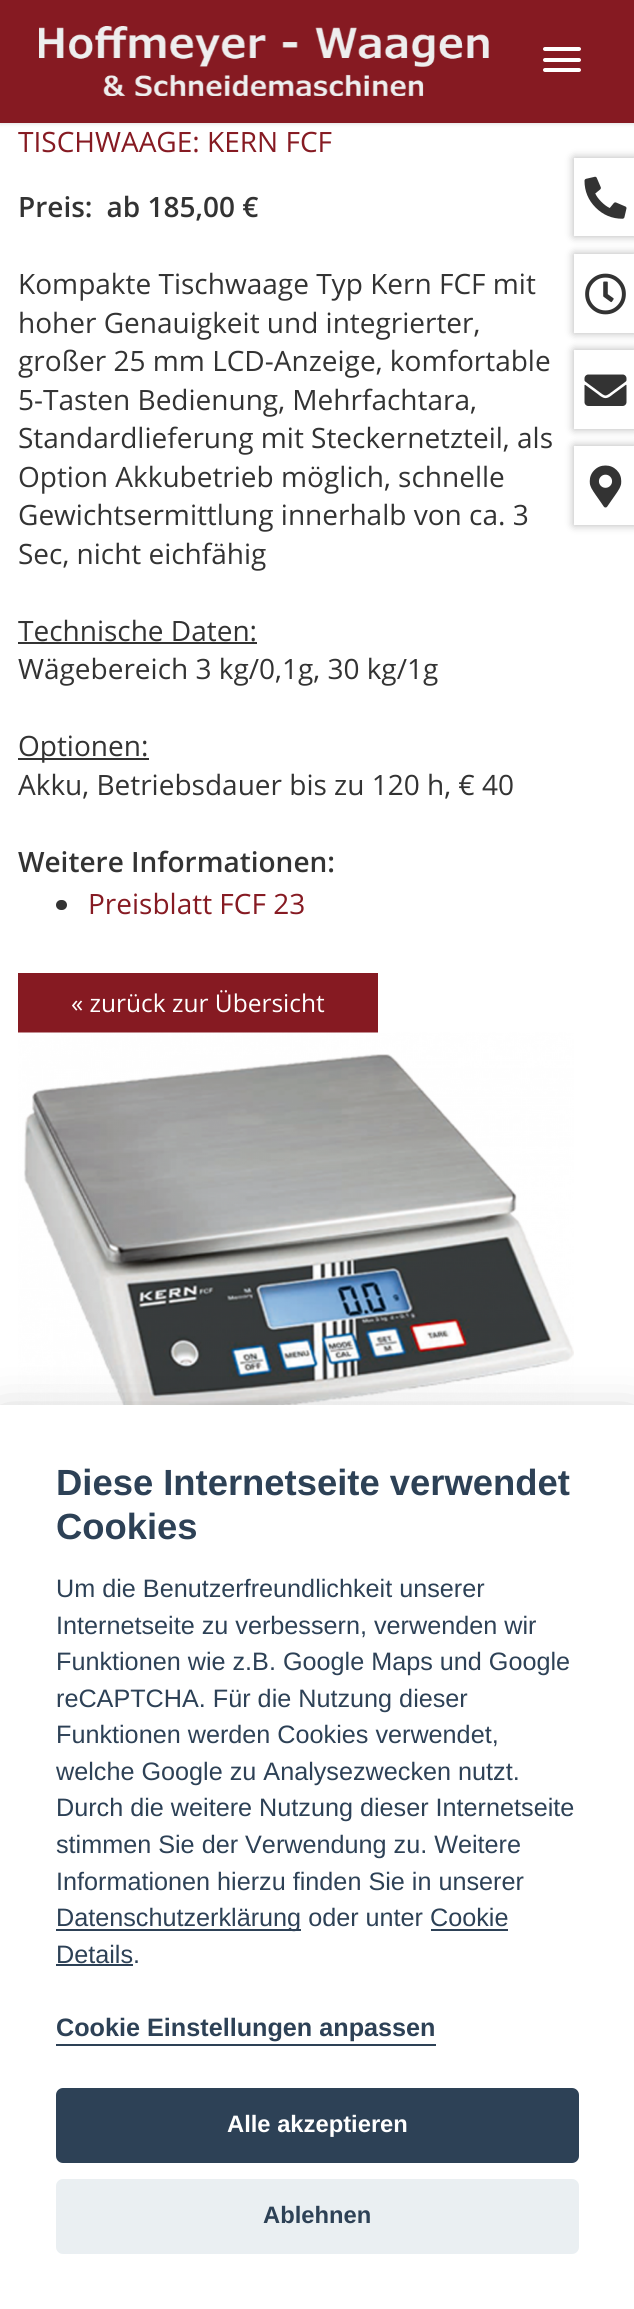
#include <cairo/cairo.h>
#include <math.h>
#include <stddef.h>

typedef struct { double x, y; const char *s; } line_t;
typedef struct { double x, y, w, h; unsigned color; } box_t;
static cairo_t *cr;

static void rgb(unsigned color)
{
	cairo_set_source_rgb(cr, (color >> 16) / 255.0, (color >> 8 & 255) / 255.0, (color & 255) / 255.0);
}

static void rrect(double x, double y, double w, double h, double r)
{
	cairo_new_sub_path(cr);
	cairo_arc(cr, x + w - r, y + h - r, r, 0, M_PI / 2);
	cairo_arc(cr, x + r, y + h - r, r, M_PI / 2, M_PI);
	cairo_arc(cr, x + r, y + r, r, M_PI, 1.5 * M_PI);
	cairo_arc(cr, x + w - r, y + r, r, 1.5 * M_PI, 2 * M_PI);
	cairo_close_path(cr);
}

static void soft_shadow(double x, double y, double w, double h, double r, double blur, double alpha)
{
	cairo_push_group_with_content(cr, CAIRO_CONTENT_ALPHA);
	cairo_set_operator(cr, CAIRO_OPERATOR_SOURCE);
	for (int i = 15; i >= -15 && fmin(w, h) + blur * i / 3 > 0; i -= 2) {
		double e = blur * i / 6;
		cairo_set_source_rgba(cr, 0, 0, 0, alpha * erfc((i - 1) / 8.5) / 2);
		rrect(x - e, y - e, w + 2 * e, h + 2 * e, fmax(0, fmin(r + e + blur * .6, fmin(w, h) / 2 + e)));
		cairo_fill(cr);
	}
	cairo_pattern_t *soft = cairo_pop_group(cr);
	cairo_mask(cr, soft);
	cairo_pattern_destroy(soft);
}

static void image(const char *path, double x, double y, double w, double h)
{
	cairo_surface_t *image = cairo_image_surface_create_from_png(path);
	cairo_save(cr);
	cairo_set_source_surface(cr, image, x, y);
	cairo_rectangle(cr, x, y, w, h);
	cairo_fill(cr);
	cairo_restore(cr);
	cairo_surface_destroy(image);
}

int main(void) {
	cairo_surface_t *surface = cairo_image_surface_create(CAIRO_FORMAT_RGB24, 634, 2309);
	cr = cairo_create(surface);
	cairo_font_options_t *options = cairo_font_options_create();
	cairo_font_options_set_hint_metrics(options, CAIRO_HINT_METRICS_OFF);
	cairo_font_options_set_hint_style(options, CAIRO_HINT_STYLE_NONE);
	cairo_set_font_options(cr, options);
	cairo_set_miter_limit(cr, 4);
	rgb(0xffffff);
	cairo_paint(cr);
	rgb(0x6c6c6c);
	soft_shadow(0, 0, 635, 123, 0, 2.5, 0.3);
	rgb(0x861a22);
	cairo_rectangle(cr, 0, 0, 634, 123);
	cairo_fill(cr);
	image("img/1.png", 39, 26, 450, 70);
	rgb(0xffffff);
	rrect(543, 47, 38, 4, 2);
	cairo_fill(cr);
	rrect(543, 58, 38, 4, 2);
	cairo_fill(cr);
	rrect(543, 68, 38, 4, 2);
	cairo_fill(cr);
	rgb(0x333333);
	cairo_rectangle(cr, 18, 642, 239, 2);
	cairo_fill(cr);
	cairo_rectangle(cr, 18, 758, 131, 2);
	cairo_fill(cr);
	rrect(56, 900, 11, 10, 5);
	cairo_fill(cr);
	rgb(0x861a22);
	cairo_rectangle(cr, 18, 973, 360, 60);
	cairo_fill(cr);
	image("img/2.png", 18, 1032, 556, 373);
	cairo_save(cr);
	cairo_set_fill_rule(cr, CAIRO_FILL_RULE_EVEN_ODD);
	cairo_new_path(cr);
	cairo_move_to(cr, 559, 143);
	cairo_line_to(cr, 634, 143);
	cairo_line_to(cr, 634, 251);
	cairo_line_to(cr, 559, 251);
	cairo_close_path(cr);
	cairo_move_to(cr, 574, 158);
	cairo_line_to(cr, 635, 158);
	cairo_line_to(cr, 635, 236);
	cairo_line_to(cr, 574, 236);
	cairo_close_path(cr);
	cairo_clip(cr);
	rgb(0x000000);
	soft_shadow(574, 158, 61, 78, 0, 4.5, 0.3);
	cairo_restore(cr);
	image("img/3.png", 584, 176, 43, 43);
	rgb(0x000000);
	soft_shadow(574, 254, 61, 79, 0, 4.5, 0.3);
	rgb(0xffffff);
	cairo_rectangle(cr, 574, 254, 60, 79);
	cairo_fill(cr);
	image("img/4.png", 585, 273, 41, 42);
	rgb(0x000000);
	soft_shadow(574, 350, 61, 79, 0, 4.5, 0.3);
	rgb(0xffffff);
	cairo_rectangle(cr, 574, 350, 60, 79);
	cairo_fill(cr);
	image("img/5.png", 584, 374, 43, 32);
	rgb(0x000000);
	soft_shadow(574, 446, 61, 79, 0, 4.5, 0.3);
	rgb(0xffffff);
	cairo_rectangle(cr, 574, 446, 60, 79);
	cairo_fill(cr);
	image("img/6.png", 589, 465, 33, 43);
	rgb(0x020203);
	soft_shadow(0, 1423, 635, 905, 0, 26, 0.28);
	{
		static const box_t items[] = {
			{0, 1405, 634, 904, 0xffffff},
			{56, 1929, 245, 2, 0x2d4156},
			{431, 1929, 77, 2, 0x2d4156},
			{56, 1964, 77, 2, 0x2d4156},
			{56, 2044, 380, 2, 0x2d4156},
		};
		for (size_t i = 0; i < sizeof items / sizeof *items; i++) {
			rgb(items[i].color);
			cairo_rectangle(cr, items[i].x, items[i].y, items[i].w, items[i].h);
			cairo_fill(cr);
		}
	}
	rrect(56, 2088, 523, 75, 7);
	cairo_fill(cr);
	rgb(0xeaeff2);
	rrect(56, 2179, 523, 75, 7);
	cairo_fill(cr);
	cairo_select_font_face(cr, "Open Sans", CAIRO_FONT_SLANT_NORMAL, CAIRO_FONT_WEIGHT_NORMAL);
	cairo_set_font_size(cr, 28);
	rgb(0x861a22);
	cairo_move_to(cr, 18, 152);
	cairo_show_text(cr, "TISCHWAAGE: KERN FCF");
	cairo_select_font_face(cr, "Open Sans SemiBold", CAIRO_FONT_SLANT_NORMAL, CAIRO_FONT_WEIGHT_NORMAL);
	rgb(0x333333);
	cairo_move_to(cr, 18, 217);
	cairo_show_text(cr, "Preis: ab 185,00 €");
	cairo_select_font_face(cr, "Open Sans", CAIRO_FONT_SLANT_NORMAL, CAIRO_FONT_WEIGHT_NORMAL);
	{
		static const line_t items[] = {
			{18, 294, "Kompakte Tischwaage Typ Kern FCF mit"},
			{18, 333, "hoher Genauigkeit und integrierter,"},
			{18, 371, "großer 25 mm LCD-Anzeige, komfortable"},
			{18, 410, "5-Tasten Bedienung, Mehrfachtara,"},
			{18, 448, "Standardlieferung mit Steckernetzteil, als"},
			{18, 487, "Option Akkubetrieb möglich, schnelle"},
			{18, 525, "Gewichtsermittlung innerhalb von ca. 3"},
			{18, 564, "Sec, nicht eichfähig"},
			{18, 641, "Technische Daten:"},
			{18, 679, "Wägebereich 3 kg/0,1g, 30 kg/1g"},
			{18, 756, "Optionen:"},
			{18, 795, "Akku, Betriebsdauer bis zu 120 h, € 40"},
		};
		for (size_t i = 0; i < sizeof items / sizeof *items; i++) {
			cairo_move_to(cr, items[i].x, items[i].y);
			cairo_show_text(cr, items[i].s);
		}
	}
	cairo_select_font_face(cr, "Open Sans SemiBold", CAIRO_FONT_SLANT_NORMAL, CAIRO_FONT_WEIGHT_NORMAL);
	cairo_move_to(cr, 18, 872);
	cairo_show_text(cr, "Weitere Informationen:");
	cairo_select_font_face(cr, "Open Sans", CAIRO_FONT_SLANT_NORMAL, CAIRO_FONT_WEIGHT_NORMAL);
	rgb(0x861a22);
	cairo_move_to(cr, 88, 914);
	cairo_show_text(cr, "Preisblatt FCF 23");
	cairo_set_font_size(cr, 24.5);
	rgb(0xffffff);
	cairo_move_to(cr, 71, 1012);
	cairo_show_text(cr, "« zurück zur Übersicht");
	cairo_select_font_face(cr, "Liberation Sans", CAIRO_FONT_SLANT_NORMAL, CAIRO_FONT_WEIGHT_BOLD);
	cairo_set_font_size(cr, 36.4);
	rgb(0x2d4156);
	cairo_move_to(cr, 56, 1495);
	cairo_show_text(cr, "Diese Internetseite verwendet");
	cairo_move_to(cr, 56, 1539);
	cairo_show_text(cr, "Cookies");
	cairo_select_font_face(cr, "Liberation Sans", CAIRO_FONT_SLANT_NORMAL, CAIRO_FONT_WEIGHT_NORMAL);
	cairo_set_font_size(cr, 25.2);
	{
		static const line_t items[] = {
			{56, 1597, "Um die Benutzerfreundlichkeit unserer"},
			{56, 1634, "Internetseite zu verbessern, verwenden wir"},
			{56, 1670, "Funktionen wie z.B. Google Maps und Google"},
			{56, 1707, "reCAPTCHA. Für die Nutzung dieser"},
			{56, 1743, "Funktionen werden Cookies verwendet,"},
			{56, 1780, "welche Google zu Analysezwecken nutzt."},
			{56, 1816, "Durch die weitere Nutzung dieser Internetseite"},
			{56, 1853, "stimmen Sie der Verwendung zu. Weitere"},
			{56, 1890, "Informationen hierzu finden Sie in unserer"},
			{56, 1926, "Datenschutzerklärung oder unter Cookie"},
			{56, 1963, "Details."},
		};
		for (size_t i = 0; i < sizeof items / sizeof *items; i++) {
			cairo_move_to(cr, items[i].x, items[i].y);
			cairo_show_text(cr, items[i].s);
		}
	}
	cairo_select_font_face(cr, "Liberation Sans", CAIRO_FONT_SLANT_NORMAL, CAIRO_FONT_WEIGHT_BOLD);
	cairo_move_to(cr, 56, 2036);
	cairo_show_text(cr, "Cookie Einstellungen anpassen");
	cairo_set_font_size(cr, 23.75);
	rgb(0xffffff);
	cairo_move_to(cr, 227, 2132);
	cairo_show_text(cr, "Alle akzeptieren");
	rgb(0x2d4156);
	cairo_move_to(cr, 263, 2223);
	cairo_show_text(cr, "Ablehnen");
	cairo_surface_write_to_png(surface, "page.png");
	cairo_font_options_destroy(options);
	cairo_destroy(cr);
	cairo_surface_destroy(surface);
	return 0;
}
